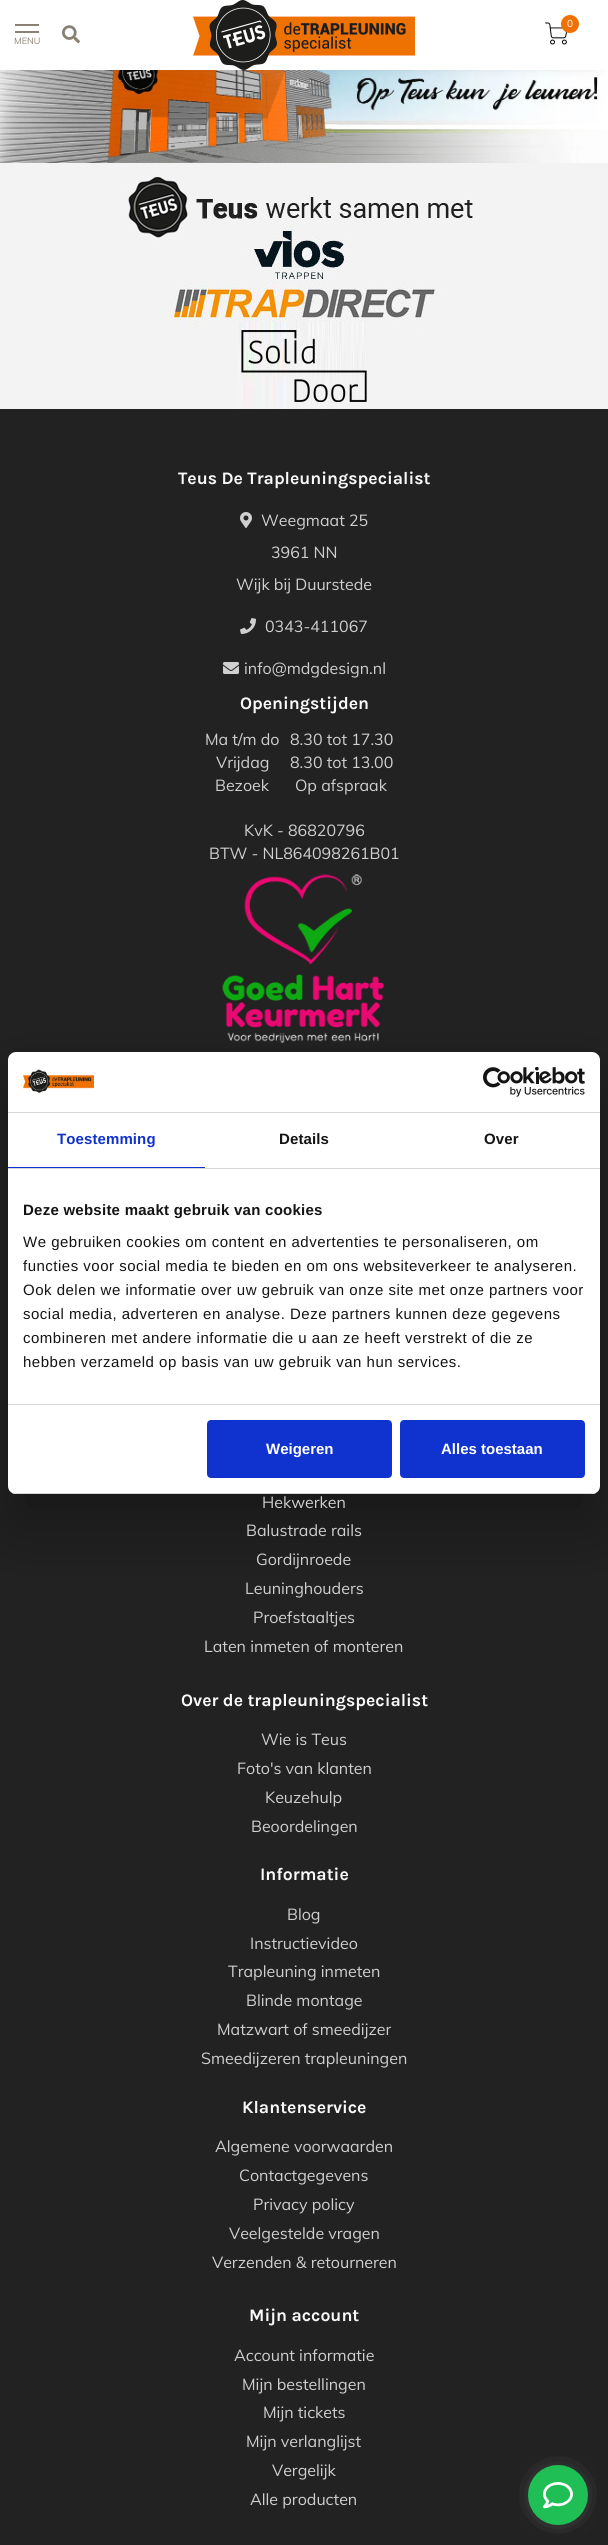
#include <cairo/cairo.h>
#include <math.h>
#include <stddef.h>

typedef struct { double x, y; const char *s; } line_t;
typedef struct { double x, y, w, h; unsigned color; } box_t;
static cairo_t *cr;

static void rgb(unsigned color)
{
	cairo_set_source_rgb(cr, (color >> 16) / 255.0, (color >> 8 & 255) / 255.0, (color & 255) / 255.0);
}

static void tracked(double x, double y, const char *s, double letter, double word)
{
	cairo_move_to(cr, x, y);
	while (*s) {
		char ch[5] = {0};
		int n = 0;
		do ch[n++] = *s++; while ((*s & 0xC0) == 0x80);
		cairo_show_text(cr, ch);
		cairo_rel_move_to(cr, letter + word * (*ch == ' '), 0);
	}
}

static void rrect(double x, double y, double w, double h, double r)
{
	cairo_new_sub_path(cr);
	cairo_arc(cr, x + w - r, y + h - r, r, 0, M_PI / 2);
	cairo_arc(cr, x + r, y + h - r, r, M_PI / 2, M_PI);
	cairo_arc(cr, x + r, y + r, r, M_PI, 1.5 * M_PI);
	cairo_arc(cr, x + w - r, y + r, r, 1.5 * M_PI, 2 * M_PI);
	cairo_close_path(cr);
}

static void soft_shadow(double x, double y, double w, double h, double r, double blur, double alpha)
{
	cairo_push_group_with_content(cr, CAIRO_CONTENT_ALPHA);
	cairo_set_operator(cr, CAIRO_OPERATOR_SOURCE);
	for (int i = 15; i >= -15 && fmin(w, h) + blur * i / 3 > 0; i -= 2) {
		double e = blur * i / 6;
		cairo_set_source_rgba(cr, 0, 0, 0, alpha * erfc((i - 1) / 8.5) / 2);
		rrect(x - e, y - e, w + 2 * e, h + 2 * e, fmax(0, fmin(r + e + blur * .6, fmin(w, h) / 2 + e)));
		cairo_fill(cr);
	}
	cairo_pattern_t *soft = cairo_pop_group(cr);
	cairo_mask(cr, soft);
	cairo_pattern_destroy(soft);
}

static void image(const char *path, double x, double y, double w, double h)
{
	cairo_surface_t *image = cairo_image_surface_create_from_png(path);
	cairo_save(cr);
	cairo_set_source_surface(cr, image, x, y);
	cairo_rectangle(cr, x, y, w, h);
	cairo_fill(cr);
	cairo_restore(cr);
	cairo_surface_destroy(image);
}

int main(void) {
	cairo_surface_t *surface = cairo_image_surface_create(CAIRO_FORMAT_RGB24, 608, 2545);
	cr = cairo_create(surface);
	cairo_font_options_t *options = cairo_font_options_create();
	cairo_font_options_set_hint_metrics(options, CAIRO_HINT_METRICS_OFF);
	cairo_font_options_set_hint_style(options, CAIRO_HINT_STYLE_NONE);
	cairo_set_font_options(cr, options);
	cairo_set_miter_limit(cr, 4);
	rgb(0xf3f3f3);
	cairo_paint(cr);
	image("img/4.png", 0, 70, 608, 93);
	rgb(0x000000);
	soft_shadow(13, 13, 582, 44, 0, 8, 0.8);
	rgb(0xffffff);
	cairo_rectangle(cr, 0, 0, 608, 70);
	cairo_fill(cr);
	image("img/1.png", 193, 0, 222, 70);
	image("img/2.png", 545, 22, 22, 23);
	rgb(0xee7203);
	cairo_arc(cr, 570, 24, 9, 0, 2 * M_PI);
	cairo_fill(cr);
	rgb(0x8a8175);
	cairo_rectangle(cr, 15, 24, 24, 2);
	cairo_fill(cr);
	cairo_rectangle(cr, 15, 31, 24, 2);
	cairo_fill(cr);
	image("img/3.png", 62, 25, 18, 19);
	image("img/5.png", 127, 172, 350, 237);
	rgb(0x222222);
	cairo_rectangle(cr, 0, 409, 608, 2136);
	cairo_fill(cr);
	image("img/6.png", 240, 512, 12, 16);
	image("img/7.png", 240, 618, 16, 16);
	image("img/8.png", 223, 662, 16, 12);
	image("img/9.png", 222, 874, 163, 170);
	rgb(0x000000);
	soft_shadow(8, 1084, 592, 442, 8, 34, 0.3);
	rgb(0xffffff);
	rrect(8, 1052, 592, 442, 8);
	cairo_fill(cr);
	rgb(0xd6d6d6);
	cairo_rectangle(cr, 8, 1112, 592, 1);
	cairo_fill(cr);
	image("img/10.png", 23, 1069, 71, 24);
	image("img/11.png", 483, 1067, 102, 30);
	{
		static const box_t items[] = {
			{8, 1168, 592, 1, 0xd6d6d6},
			{8, 1167, 197, 1, 0x1032cf},
			{8, 1404, 592, 1, 0xd6d6d6},
		};
		for (size_t i = 0; i < sizeof items / sizeof *items; i++) {
			rgb(items[i].color);
			cairo_rectangle(cr, items[i].x, items[i].y, items[i].w, items[i].h);
			cairo_fill(cr);
		}
	}
	cairo_save(cr);
	rrect(8, 1052, 592, 442, 8);
	cairo_clip(cr);
	cairo_rectangle(cr, 8, 1493, 592, 1);
	cairo_fill(cr);
	cairo_restore(cr);
	rgb(0x1032cf);
	rrect(208, 1421, 183, 56, 3);
	cairo_fill_preserve(cr);
	cairo_stroke(cr);
	rrect(401, 1421, 183, 56, 3);
	cairo_fill_preserve(cr);
	cairo_stroke(cr);
	image("img/12.png", 519, 2456, 78, 78);
	cairo_select_font_face(cr, "Muli", CAIRO_FONT_SLANT_NORMAL, CAIRO_FONT_WEIGHT_NORMAL);
	cairo_set_font_size(cr, 10);
	rgb(0xffffff);
	cairo_move_to(cr, 567, 27);
	cairo_show_text(cr, "0");
	cairo_set_font_size(cr, 9);
	rgb(0x8a8175);
	cairo_move_to(cr, 14, 44);
	cairo_show_text(cr, "MENU");
	cairo_select_font_face(cr, "Karla", CAIRO_FONT_SLANT_NORMAL, CAIRO_FONT_WEIGHT_BOLD);
	cairo_set_font_size(cr, 17.6);
	rgb(0xf9f9f9);
	cairo_move_to(cr, 178, 484);
	cairo_show_text(cr, "Teus De Trapleuningspecialist");
	cairo_select_font_face(cr, "Muli", CAIRO_FONT_SLANT_NORMAL, CAIRO_FONT_WEIGHT_NORMAL);
	cairo_set_font_size(cr, 16);
	rgb(0xcfcfcf);
	{
		static const line_t items[] = {
			{261, 526, "Weegmaat 25"},
			{271, 558, "3961 NN"},
			{236, 590, "Wijk bij Duurstede"},
			{265, 632, "0343-411067"},
			{244, 674, "info@mdgdesign.nl"},
		};
		for (size_t i = 0; i < sizeof items / sizeof *items; i++) {
			cairo_move_to(cr, items[i].x, items[i].y);
			cairo_show_text(cr, items[i].s);
		}
	}
	cairo_select_font_face(cr, "Karla", CAIRO_FONT_SLANT_NORMAL, CAIRO_FONT_WEIGHT_BOLD);
	cairo_set_font_size(cr, 17.6);
	rgb(0xf9f9f9);
	cairo_move_to(cr, 240, 709);
	cairo_show_text(cr, "Openingstijden");
	cairo_select_font_face(cr, "Muli", CAIRO_FONT_SLANT_NORMAL, CAIRO_FONT_WEIGHT_NORMAL);
	cairo_set_font_size(cr, 16);
	rgb(0xcfcfcf);
	{
		static const line_t items[] = {
			{205, 745, "Ma t/m do"},
			{290, 745, "8.30 tot 17.30"},
			{216, 768, "Vrijdag"},
			{290, 768, "8.30 tot 13.00"},
			{215, 791, "Bezoek"},
			{295, 791, "Op afspraak"},
			{244, 836, "KvK - 86820796"},
			{209, 859, "BTW - NL864098261B01"},
			{262, 1508, "Hekwerken"},
			{246, 1536, "Balustrade rails"},
			{256, 1565, "Gordijnroede"},
			{245, 1594, "Leuninghouders"},
			{253, 1623, "Proefstaaltjes"},
			{204, 1652, "Laten inmeten of monteren"},
		};
		for (size_t i = 0; i < sizeof items / sizeof *items; i++) {
			cairo_move_to(cr, items[i].x, items[i].y);
			cairo_show_text(cr, items[i].s);
		}
	}
	cairo_select_font_face(cr, "Karla", CAIRO_FONT_SLANT_NORMAL, CAIRO_FONT_WEIGHT_BOLD);
	cairo_set_font_size(cr, 17.6);
	rgb(0xf9f9f9);
	cairo_move_to(cr, 181, 1706);
	cairo_show_text(cr, "Over de trapleuningspecialist");
	cairo_select_font_face(cr, "Muli", CAIRO_FONT_SLANT_NORMAL, CAIRO_FONT_WEIGHT_NORMAL);
	cairo_set_font_size(cr, 16);
	rgb(0xcfcfcf);
	{
		static const line_t items[] = {
			{261, 1745, "Wie is Teus"},
			{237, 1774, "Foto's van klanten"},
			{265, 1803, "Keuzehulp"},
			{251, 1832, "Beoordelingen"},
		};
		for (size_t i = 0; i < sizeof items / sizeof *items; i++) {
			cairo_move_to(cr, items[i].x, items[i].y);
			cairo_show_text(cr, items[i].s);
		}
	}
	cairo_select_font_face(cr, "Karla", CAIRO_FONT_SLANT_NORMAL, CAIRO_FONT_WEIGHT_BOLD);
	cairo_set_font_size(cr, 17.6);
	rgb(0xf9f9f9);
	cairo_move_to(cr, 260, 1880);
	cairo_show_text(cr, "Informatie");
	cairo_select_font_face(cr, "Muli", CAIRO_FONT_SLANT_NORMAL, CAIRO_FONT_WEIGHT_NORMAL);
	cairo_set_font_size(cr, 16);
	rgb(0xcfcfcf);
	{
		static const line_t items[] = {
			{287, 1920, "Blog"},
			{250, 1949, "Instructievideo"},
			{228, 1977, "Trapleuning inmeten"},
			{246, 2006, "Blinde montage"},
			{217, 2035, "Matzwart of smeedijzer"},
			{201, 2064, "Smeedijzeren trapleuningen"},
		};
		for (size_t i = 0; i < sizeof items / sizeof *items; i++) {
			cairo_move_to(cr, items[i].x, items[i].y);
			cairo_show_text(cr, items[i].s);
		}
	}
	cairo_select_font_face(cr, "Karla", CAIRO_FONT_SLANT_NORMAL, CAIRO_FONT_WEIGHT_BOLD);
	cairo_set_font_size(cr, 17.6);
	rgb(0xf9f9f9);
	cairo_move_to(cr, 242, 2113);
	cairo_show_text(cr, "Klantenservice");
	cairo_select_font_face(cr, "Muli", CAIRO_FONT_SLANT_NORMAL, CAIRO_FONT_WEIGHT_NORMAL);
	cairo_set_font_size(cr, 16);
	rgb(0xcfcfcf);
	{
		static const line_t items[] = {
			{215, 2152, "Algemene voorwaarden"},
			{239, 2181, "Contactgegevens"},
			{253, 2210, "Privacy policy"},
			{229, 2239, "Veelgestelde vragen"},
			{212, 2268, "Verzenden & retourneren"},
		};
		for (size_t i = 0; i < sizeof items / sizeof *items; i++) {
			cairo_move_to(cr, items[i].x, items[i].y);
			cairo_show_text(cr, items[i].s);
		}
	}
	cairo_select_font_face(cr, "Karla", CAIRO_FONT_SLANT_NORMAL, CAIRO_FONT_WEIGHT_BOLD);
	cairo_set_font_size(cr, 17.6);
	rgb(0xf9f9f9);
	cairo_move_to(cr, 249, 2321);
	cairo_show_text(cr, "Mijn account");
	cairo_select_font_face(cr, "Muli", CAIRO_FONT_SLANT_NORMAL, CAIRO_FONT_WEIGHT_NORMAL);
	cairo_set_font_size(cr, 16);
	rgb(0xcfcfcf);
	{
		static const line_t items[] = {
			{234, 2361, "Account informatie"},
			{242, 2390, "Mijn bestellingen"},
			{263, 2418, "Mijn tickets"},
			{246, 2447, "Mijn verlanglijst"},
			{272, 2476, "Vergelijk"},
			{250, 2505, "Alle producten"},
		};
		for (size_t i = 0; i < sizeof items / sizeof *items; i++) {
			cairo_move_to(cr, items[i].x, items[i].y);
			cairo_show_text(cr, items[i].s);
		}
	}
	cairo_select_font_face(cr, "Liberation Sans", CAIRO_FONT_SLANT_NORMAL, CAIRO_FONT_WEIGHT_BOLD);
	cairo_set_font_size(cr, 15);
	rgb(0x1032cf);
	tracked(57, 1144, "Toestemming", 0.1, 0);
	rgb(0x141414);
	tracked(279, 1144, "Details", 0.1, 0);
	tracked(484, 1144, "Over", 0.1, 0);
	tracked(23, 1215, "Deze website maakt gebruik van cookies", 0.25, 0);
	cairo_select_font_face(cr, "Liberation Sans", CAIRO_FONT_SLANT_NORMAL, CAIRO_FONT_WEIGHT_NORMAL);
	{
		static const line_t items[] = {
			{23, 1247, "We gebruiken cookies om content en advertenties te personaliseren, om"},
			{23, 1271, "functies voor social media te bieden en om ons websiteverkeer te analyseren."},
			{23, 1295, "Ook delen we informatie over uw gebruik van onze site met onze partners voor"},
			{23, 1319, "social media, adverteren en analyse. Deze partners kunnen deze gegevens"},
			{23, 1343, "combineren met andere informatie die u aan ze heeft verstrekt of die ze"},
			{23, 1367, "hebben verzameld op basis van uw gebruik van hun services."},
		};
		for (size_t i = 0; i < sizeof items / sizeof *items; i++) {
			tracked(items[i].x, items[i].y, items[i].s, 0.5, 0);
		}
	}
	cairo_select_font_face(cr, "Liberation Sans", CAIRO_FONT_SLANT_NORMAL, CAIRO_FONT_WEIGHT_BOLD);
	rgb(0xffffff);
	cairo_move_to(cr, 266, 1454);
	cairo_show_text(cr, "Weigeren");
	cairo_move_to(cr, 441, 1454);
	cairo_show_text(cr, "Alles toestaan");
	cairo_surface_write_to_png(surface, "page.png");
	cairo_font_options_destroy(options);
	cairo_destroy(cr);
	cairo_surface_destroy(surface);
	return 0;
}
